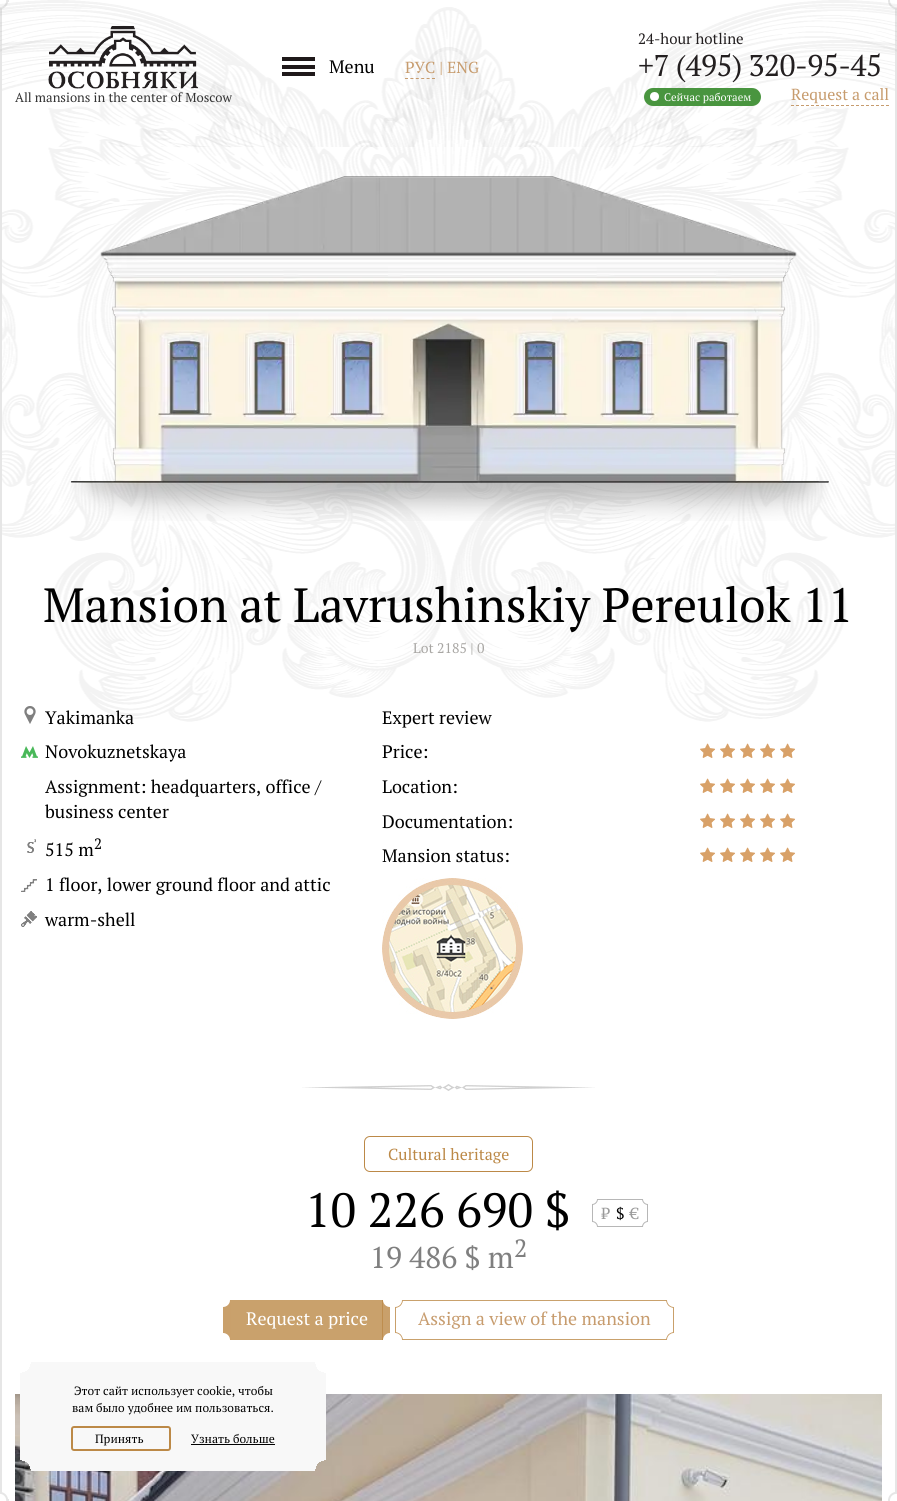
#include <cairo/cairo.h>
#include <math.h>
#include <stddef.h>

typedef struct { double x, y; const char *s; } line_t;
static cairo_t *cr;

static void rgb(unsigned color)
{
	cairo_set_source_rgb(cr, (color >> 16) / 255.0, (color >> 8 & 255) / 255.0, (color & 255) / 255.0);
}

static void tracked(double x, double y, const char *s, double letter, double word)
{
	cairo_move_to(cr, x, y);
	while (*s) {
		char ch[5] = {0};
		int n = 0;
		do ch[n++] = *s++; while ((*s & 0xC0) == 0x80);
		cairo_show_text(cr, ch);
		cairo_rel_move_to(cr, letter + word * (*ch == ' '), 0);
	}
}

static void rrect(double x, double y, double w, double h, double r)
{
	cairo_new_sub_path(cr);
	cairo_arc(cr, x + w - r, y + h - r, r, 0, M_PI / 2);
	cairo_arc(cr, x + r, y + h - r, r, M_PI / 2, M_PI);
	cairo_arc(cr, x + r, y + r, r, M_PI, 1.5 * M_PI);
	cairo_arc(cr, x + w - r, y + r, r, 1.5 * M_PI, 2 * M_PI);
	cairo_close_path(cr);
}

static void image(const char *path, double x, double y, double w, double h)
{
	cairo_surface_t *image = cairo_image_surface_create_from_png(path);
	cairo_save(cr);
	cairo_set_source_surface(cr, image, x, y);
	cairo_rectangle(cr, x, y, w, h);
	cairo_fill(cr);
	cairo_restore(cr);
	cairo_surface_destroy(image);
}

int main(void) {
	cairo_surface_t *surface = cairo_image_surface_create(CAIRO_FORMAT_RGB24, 897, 1501);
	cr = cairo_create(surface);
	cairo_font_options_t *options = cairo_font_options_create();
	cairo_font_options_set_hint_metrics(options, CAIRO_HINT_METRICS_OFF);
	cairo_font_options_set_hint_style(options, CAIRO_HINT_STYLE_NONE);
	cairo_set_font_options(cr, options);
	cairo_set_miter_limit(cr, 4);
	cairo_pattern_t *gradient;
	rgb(0xffffff);
	cairo_paint(cr);
	image("img/1.png", 2, 40, 893, 682);
	image("img/2.png", 0, 0, 9, 9);
	rgb(0xe6e6e6);
	cairo_rectangle(cr, 0, 9, 2, 1483);
	cairo_fill(cr);
	image("img/3.png", 0, 1492, 9, 9);
	image("img/4.png", 888, 0, 9, 9);
	cairo_rectangle(cr, 895, 9, 2, 1483);
	cairo_fill(cr);
	image("img/5.png", 888, 1492, 9, 9);
	image("img/6.png", 0, 0, 897, 147);
	image("img/7.png", 282, 57, 33, 19);
	cairo_new_path(cr);
	cairo_move_to(cr, 405, 78.5);
	cairo_line_to(cr, 435, 78.5);
	rgb(0xc79c6e);
	cairo_set_line_width(cr, 1);
	cairo_set_dash(cr, (double[]){3, 2.4}, 2, 0);
	cairo_stroke(cr);
	image("img/8.png", 48, 26, 150, 63);
	rgb(0x49953f);
	rrect(644, 88, 117, 18, 9);
	cairo_fill(cr);
	rgb(0xffffff);
	cairo_arc(cr, 654.5, 96.5, 4.5, 0, 2 * M_PI);
	cairo_fill(cr);
	cairo_new_path(cr);
	cairo_move_to(cr, 791, 105.5);
	cairo_line_to(cr, 889, 105.5);
	rgb(0xc79c6e);
	cairo_set_dash(cr, (double[]){3, 2}, 2, 0);
	cairo_stroke(cr);
	image("img/9.png", 70, 176, 759, 345);
	image("img/10.png", 24, 706, 12, 18);
	image("img/11.png", 21, 746, 17, 12);
	image("img/12.png", 27, 839, 9, 14);
	image("img/13.png", 21, 879, 16, 13);
	image("img/14.png", 21, 911, 16, 16);
	image("img/15.png", 700, 743, 95, 15);
	image("img/15.png", 700, 778, 95, 15);
	image("img/15.png", 700, 813, 95, 15);
	image("img/15.png", 700, 847, 95, 15);
	image("img/16.png", 382, 878, 141, 141);
	image("img/17.png", 302, 1084, 293, 7);
	rrect(364.5, 1136.5, 168, 35, 5.5);
	rgb(0xbc8947);
	cairo_set_dash(cr, NULL, 0, 0);
	cairo_stroke(cr);
	rgb(0xb7b7b7);
	cairo_rectangle(cr, 598, 1199, 44, 1);
	cairo_fill(cr);
	cairo_rectangle(cr, 598, 1226, 44, 1);
	cairo_fill(cr);
	image("img/18.png", 592, 1199, 6, 28);
	image("img/19.png", 642, 1199, 6, 28);
	image("img/20.png", 223, 1300, 8, 40);
	rgb(0xc9a16c);
	cairo_rectangle(cr, 231, 1300, 152, 40);
	cairo_fill(cr);
	image("img/21.png", 382, 1300, 8, 40);
	image("img/22.png", 395, 1300, 8, 40);
	cairo_rectangle(cr, 403, 1300, 263, 1);
	cairo_fill(cr);
	cairo_rectangle(cr, 403, 1339, 263, 1);
	cairo_fill(cr);
	image("img/23.png", 666, 1300, 8, 40);
	image("img/24.png", 15, 1394, 867, 107);
	gradient = cairo_pattern_create_radial(326, 1362, 0, 326, 1362, 179);
	cairo_pattern_add_color_stop_rgba(gradient, 0.06, 0.973, 0.973, 0.973, 0);
	cairo_pattern_add_color_stop_rgba(gradient, 0.06, 0.973, 0.973, 0.973, 1);
	cairo_set_source(cr, gradient);
	cairo_pattern_destroy(gradient);
	cairo_rectangle(cr, 188, 1362, 138, 49);
	cairo_fill(cr);
	gradient = cairo_pattern_create_radial(20, 1362, 0, 20, 1362, 179);
	cairo_pattern_add_color_stop_rgba(gradient, 0.06, 0.973, 0.973, 0.973, 0);
	cairo_pattern_add_color_stop_rgba(gradient, 0.06, 0.973, 0.973, 0.973, 1);
	cairo_set_source(cr, gradient);
	cairo_pattern_destroy(gradient);
	cairo_rectangle(cr, 20, 1362, 168, 49);
	cairo_fill(cr);
	rrect(72, 1427, 98, 23, 2);
	rgb(0xbc8947);
	cairo_set_line_width(cr, 2);
	cairo_stroke(cr);
	rgb(0x000000);
	cairo_rectangle(cr, 191, 1444, 84, 1);
	cairo_fill(cr);
	cairo_select_font_face(cr, "PT Serif", CAIRO_FONT_SLANT_NORMAL, CAIRO_FONT_WEIGHT_NORMAL);
	cairo_set_font_size(cr, 18);
	cairo_move_to(cr, 329, 73);
	cairo_show_text(cr, "Menu");
	cairo_set_font_size(cr, 16);
	rgb(0xc79c6e);
	cairo_move_to(cr, 405, 73);
	cairo_show_text(cr, "РУС | ENG");
	cairo_set_font_size(cr, 13);
	rgb(0x333333);
	cairo_move_to(cr, 15, 102);
	cairo_show_text(cr, "All mansions in the center of Moscow");
	cairo_set_font_size(cr, 15);
	rgb(0x231f20);
	cairo_move_to(cr, 638, 44);
	cairo_show_text(cr, "24-hour hotline");
	cairo_set_font_size(cr, 30);
	tracked(638, 76, "+7 (495) 320-95-45", -0.5, 0);
	cairo_set_font_size(cr, 11);
	rgb(0xffffff);
	cairo_move_to(cr, 664, 101);
	cairo_show_text(cr, "Сейчас работаем");
	cairo_set_font_size(cr, 16);
	rgb(0xc79c6e);
	cairo_move_to(cr, 791, 100);
	cairo_show_text(cr, "Request a call");
	cairo_set_font_size(cr, 48);
	rgb(0x000000);
	cairo_move_to(cr, 43, 622);
	cairo_show_text(cr, "Mansion at Lavrushinskiy Pereulok 11");
	cairo_set_font_size(cr, 14);
	rgb(0xa8a6a3);
	cairo_move_to(cr, 413, 653);
	cairo_show_text(cr, "Lot 2185 | 0");
	cairo_set_font_size(cr, 18);
	rgb(0x000000);
	{
		static const line_t items[] = {
			{45, 724, "Yakimanka"},
			{45, 758, "Novokuznetskaya"},
			{45, 793, "Assignment: headquarters, office /"},
			{45, 818, "business center"},
			{45, 856, "515 m"},
		};
		for (size_t i = 0; i < sizeof items / sizeof *items; i++) {
			cairo_move_to(cr, items[i].x, items[i].y);
			cairo_show_text(cr, items[i].s);
		}
	}
	cairo_set_font_size(cr, 15);
	cairo_move_to(cr, 94, 849);
	cairo_show_text(cr, "2");
	cairo_set_font_size(cr, 18);
	{
		static const line_t items[] = {
			{45, 891, "1 floor, lower ground floor and attic"},
			{45, 926, "warm-shell"},
			{382, 724, "Expert review"},
			{382, 758, "Price:"},
			{382, 793, "Location:"},
			{382, 828, "Documentation:"},
			{382, 862, "Mansion status:"},
		};
		for (size_t i = 0; i < sizeof items / sizeof *items; i++) {
			cairo_move_to(cr, items[i].x, items[i].y);
			cairo_show_text(cr, items[i].s);
		}
	}
	cairo_set_font_size(cr, 16);
	rgb(0xbc8947);
	cairo_move_to(cr, 388, 1160);
	cairo_show_text(cr, "Cultural heritage");
	cairo_set_font_size(cr, 48);
	rgb(0x000000);
	cairo_move_to(cr, 305, 1227);
	cairo_show_text(cr, "10 226 690 $");
	cairo_set_font_size(cr, 16);
	rgb(0x9a9a9a);
	cairo_move_to(cr, 601, 1219);
	cairo_show_text(cr, "₽");
	rgb(0x000000);
	cairo_move_to(cr, 616, 1219);
	cairo_show_text(cr, "$");
	rgb(0x9a9a9a);
	cairo_move_to(cr, 630, 1219);
	cairo_show_text(cr, "€");
	cairo_set_font_size(cr, 30);
	rgb(0x7f7f7f);
	cairo_move_to(cr, 370, 1268);
	cairo_show_text(cr, "19 486 $ m");
	cairo_set_font_size(cr, 25);
	cairo_move_to(cr, 514, 1257);
	cairo_show_text(cr, "2");
	cairo_set_font_size(cr, 18);
	rgb(0xffffff);
	cairo_move_to(cr, 246, 1325);
	cairo_show_text(cr, "Request a price");
	rgb(0xc79c6e);
	cairo_move_to(cr, 418, 1325);
	cairo_show_text(cr, "Assign a view of the mansion");
	cairo_set_font_size(cr, 12);
	rgb(0x000000);
	{
		static const line_t items[] = {
			{74, 1395, "Этот сайт использует cookie, чтобы"},
			{72, 1412, "вам было удобнее им пользоваться."},
			{95, 1443, "Принять"},
			{191, 1443, "Узнать больше"},
		};
		for (size_t i = 0; i < sizeof items / sizeof *items; i++) {
			cairo_move_to(cr, items[i].x, items[i].y);
			cairo_show_text(cr, items[i].s);
		}
	}
	cairo_surface_write_to_png(surface, "page.png");
	cairo_font_options_destroy(options);
	cairo_destroy(cr);
	cairo_surface_destroy(surface);
	return 0;
}
